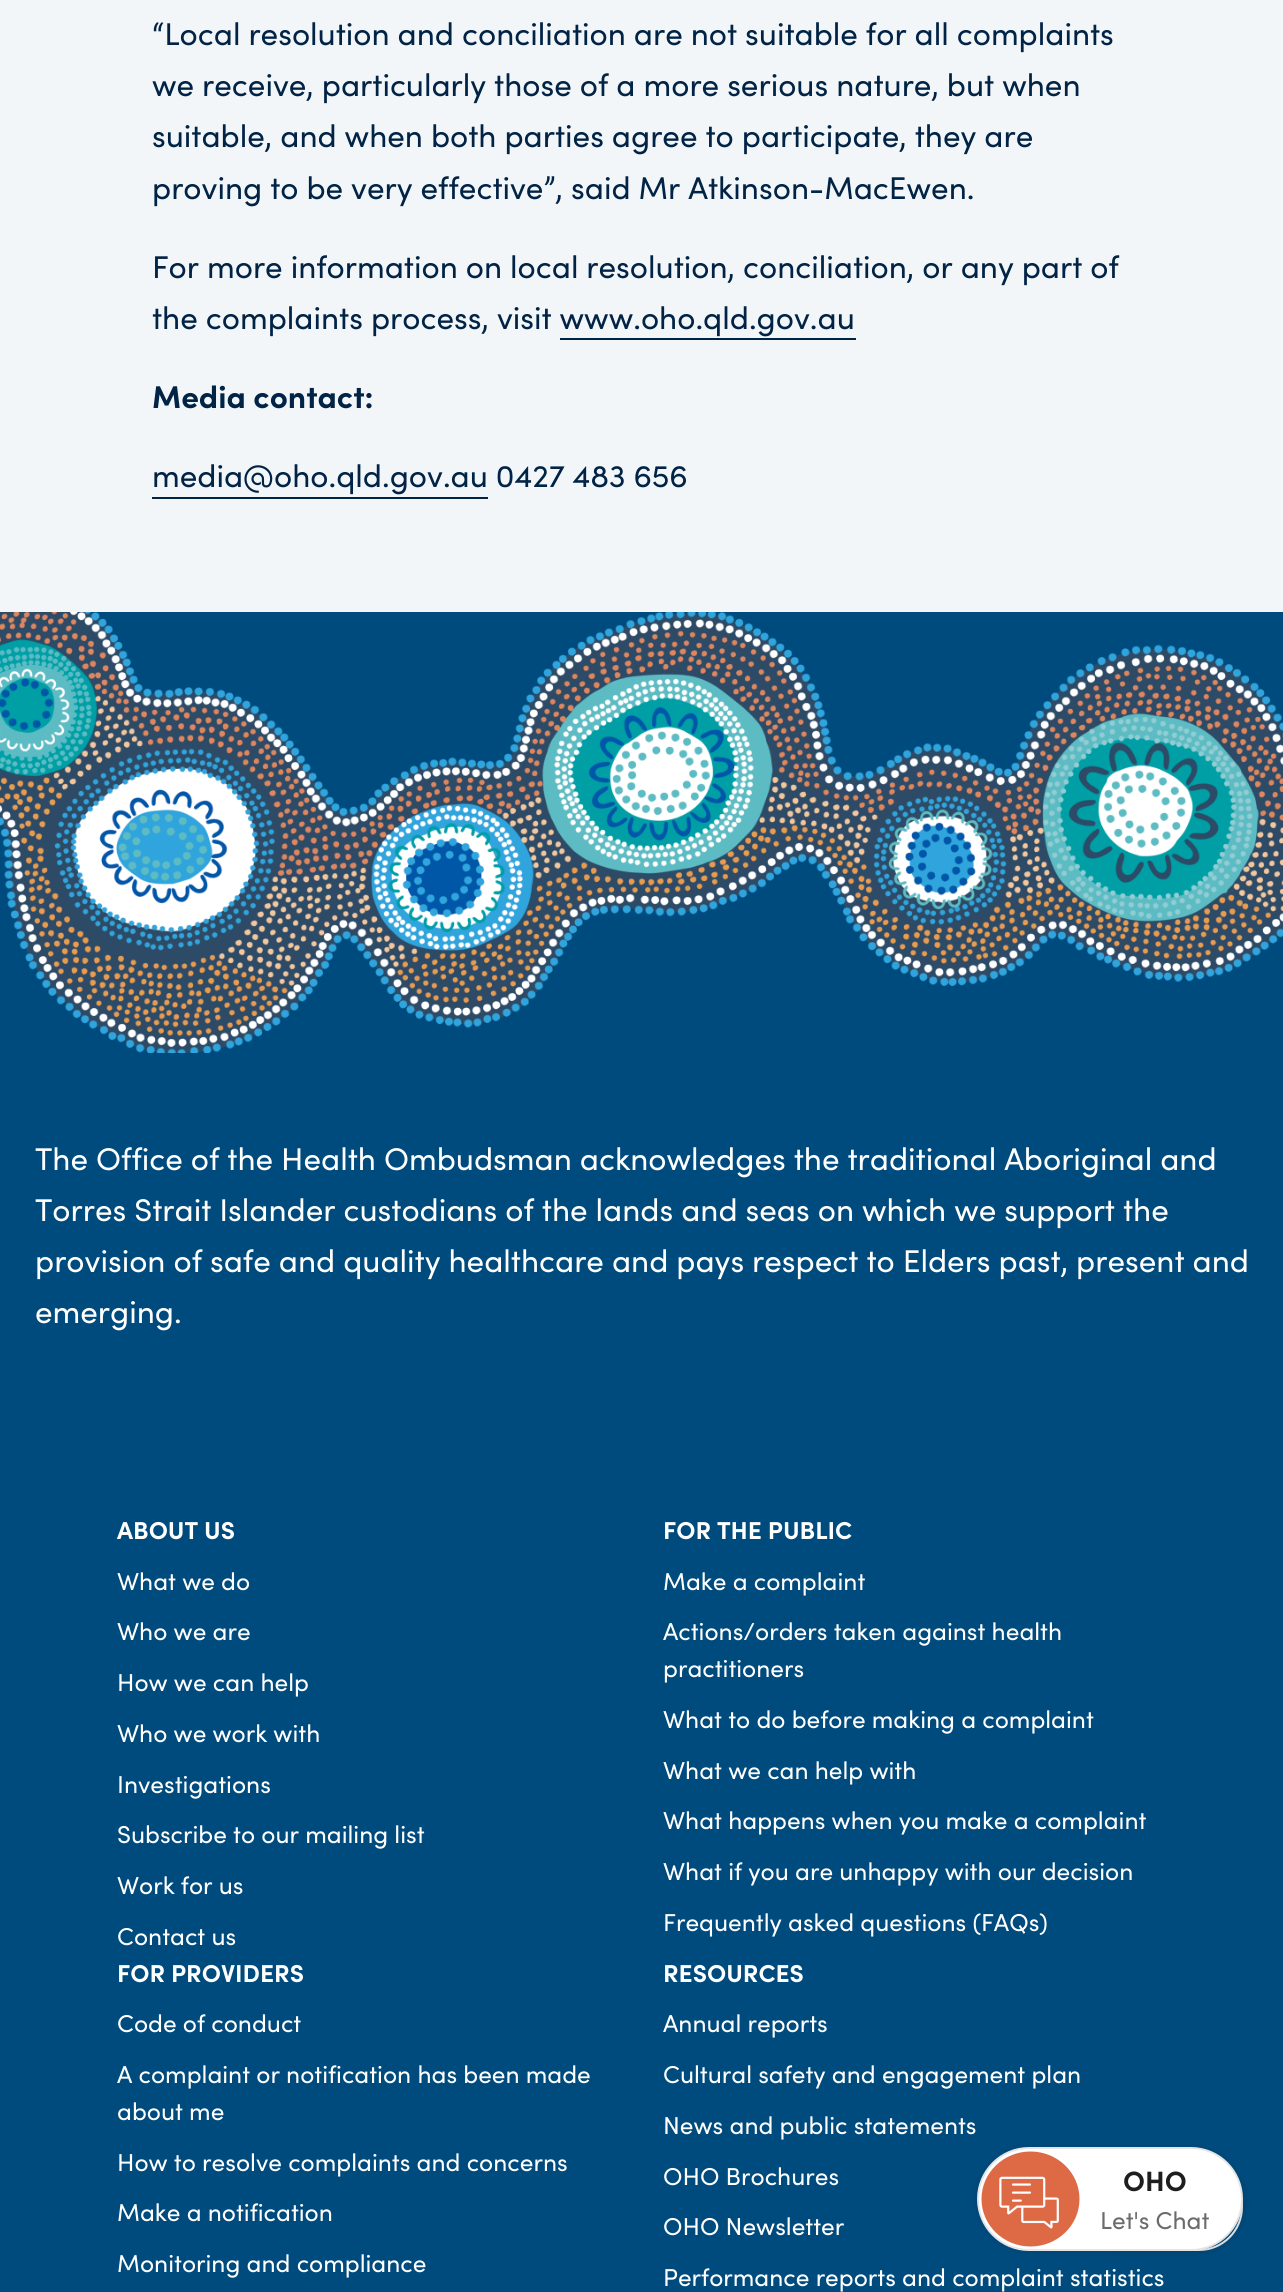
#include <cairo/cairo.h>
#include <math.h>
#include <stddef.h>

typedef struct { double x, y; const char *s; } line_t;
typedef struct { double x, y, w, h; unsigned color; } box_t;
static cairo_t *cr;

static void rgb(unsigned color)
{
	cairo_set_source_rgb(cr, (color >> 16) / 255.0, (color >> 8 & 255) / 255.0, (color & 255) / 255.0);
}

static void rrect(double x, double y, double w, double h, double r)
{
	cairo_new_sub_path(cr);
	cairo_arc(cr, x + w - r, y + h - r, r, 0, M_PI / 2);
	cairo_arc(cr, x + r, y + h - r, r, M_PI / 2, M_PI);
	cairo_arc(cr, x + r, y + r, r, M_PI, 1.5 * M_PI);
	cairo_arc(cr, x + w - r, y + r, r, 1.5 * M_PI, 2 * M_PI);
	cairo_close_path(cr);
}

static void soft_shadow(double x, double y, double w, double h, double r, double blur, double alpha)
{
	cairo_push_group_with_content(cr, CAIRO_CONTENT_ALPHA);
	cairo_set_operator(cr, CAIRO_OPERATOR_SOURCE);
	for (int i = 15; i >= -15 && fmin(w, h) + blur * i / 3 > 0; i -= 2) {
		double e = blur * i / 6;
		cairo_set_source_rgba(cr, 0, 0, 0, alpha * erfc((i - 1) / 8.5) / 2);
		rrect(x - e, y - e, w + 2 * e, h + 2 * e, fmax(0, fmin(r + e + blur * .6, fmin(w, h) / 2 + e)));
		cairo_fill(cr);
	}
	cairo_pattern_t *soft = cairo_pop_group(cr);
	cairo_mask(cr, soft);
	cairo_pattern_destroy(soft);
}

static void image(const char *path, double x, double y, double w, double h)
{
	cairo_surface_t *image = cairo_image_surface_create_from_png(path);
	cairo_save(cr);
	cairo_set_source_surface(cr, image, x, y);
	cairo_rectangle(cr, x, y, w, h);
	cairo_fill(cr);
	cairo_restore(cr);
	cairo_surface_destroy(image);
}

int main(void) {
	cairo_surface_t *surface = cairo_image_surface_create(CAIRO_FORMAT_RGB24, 1283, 2292);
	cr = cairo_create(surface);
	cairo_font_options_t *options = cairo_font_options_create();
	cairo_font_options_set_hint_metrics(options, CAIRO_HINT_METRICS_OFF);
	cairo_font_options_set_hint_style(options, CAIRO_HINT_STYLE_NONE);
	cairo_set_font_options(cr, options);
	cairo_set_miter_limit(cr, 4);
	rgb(0xf2f6f8);
	cairo_paint(cr);
	{
		static const box_t items[] = {
			{560, 338, 296, 2, 0x012345},
			{152, 497, 336, 2, 0x012345},
			{0, 1053, 1283, 1239, 0x004b7e},
		};
		for (size_t i = 0; i < sizeof items / sizeof *items; i++) {
			rgb(items[i].color);
			cairo_rectangle(cr, items[i].x, items[i].y, items[i].w, items[i].h);
			cairo_fill(cr);
		}
	}
	image("img/1.png", 0, 612, 1283, 441);
	rgb(0x000000);
	soft_shadow(1083, 2163, 160, 88, 44, 5, 0.1);
	rgb(0x004b7e);
	rrect(1084, 2164, 158, 86, 43);
	cairo_fill_preserve(cr);
	rgb(0xe5e5e5);
	cairo_stroke(cr);
	rgb(0x000000);
	soft_shadow(977, 2147, 266, 104, 52, 5, 0.1);
	rgb(0xffffff);
	rrect(978, 2148, 264, 102, 51);
	cairo_fill_preserve(cr);
	rgb(0xe5e5e5);
	cairo_stroke(cr);
	image("img/2.png", 981, 2151, 99, 96);
	cairo_select_font_face(cr, "Sofia", CAIRO_FONT_SLANT_NORMAL, CAIRO_FONT_WEIGHT_NORMAL);
	cairo_set_font_size(cr, 31.5);
	rgb(0x012345);
	{
		static const line_t items[] = {
			{152, 45, "“Local resolution and conciliation are not suitable for all complaints"},
			{152, 96, "we receive, particularly those of a more serious nature, but when"},
			{152, 147, "suitable, and when both parties agree to participate, they are"},
			{152, 199, "proving to be very effective”, said Mr Atkinson-MacEwen."},
			{152, 278, "For more information on local resolution, conciliation, or any part of"},
			{152, 329, "the complaints process, visit www.oho.qld.gov.au"},
		};
		for (size_t i = 0; i < sizeof items / sizeof *items; i++) {
			cairo_move_to(cr, items[i].x, items[i].y);
			cairo_show_text(cr, items[i].s);
		}
	}
	cairo_select_font_face(cr, "Sofia", CAIRO_FONT_SLANT_NORMAL, CAIRO_FONT_WEIGHT_BOLD);
	cairo_move_to(cr, 152, 408);
	cairo_show_text(cr, "Media contact:");
	cairo_select_font_face(cr, "Sofia", CAIRO_FONT_SLANT_NORMAL, CAIRO_FONT_WEIGHT_NORMAL);
	cairo_move_to(cr, 152, 487);
	cairo_show_text(cr, "media@oho.qld.gov.au 0427 483 656");
	rgb(0xffffff);
	{
		static const line_t items[] = {
			{35, 1170, "The Office of the Health Ombudsman acknowledges the traditional Aboriginal and"},
			{35, 1221, "Torres Strait Islander custodians of the lands and seas on which we support the"},
			{35, 1272, "provision of safe and quality healthcare and pays respect to Elders past, present and"},
			{35, 1323, "emerging."},
		};
		for (size_t i = 0; i < sizeof items / sizeof *items; i++) {
			cairo_move_to(cr, items[i].x, items[i].y);
			cairo_show_text(cr, items[i].s);
		}
	}
	cairo_select_font_face(cr, "Sofia", CAIRO_FONT_SLANT_NORMAL, CAIRO_FONT_WEIGHT_BOLD);
	cairo_set_font_size(cr, 24.5);
	cairo_move_to(cr, 117, 1539);
	cairo_show_text(cr, "ABOUT US");
	cairo_select_font_face(cr, "Sofia", CAIRO_FONT_SLANT_NORMAL, CAIRO_FONT_WEIGHT_NORMAL);
	{
		static const line_t items[] = {
			{117, 1590, "What we do"},
			{117, 1640, "Who we are"},
			{117, 1691, "How we can help"},
			{117, 1742, "Who we work with"},
			{117, 1793, "Investigations"},
			{117, 1843, "Subscribe to our mailing list"},
			{117, 1894, "Work for us"},
			{117, 1945, "Contact us"},
		};
		for (size_t i = 0; i < sizeof items / sizeof *items; i++) {
			cairo_move_to(cr, items[i].x, items[i].y);
			cairo_show_text(cr, items[i].s);
		}
	}
	cairo_select_font_face(cr, "Sofia", CAIRO_FONT_SLANT_NORMAL, CAIRO_FONT_WEIGHT_BOLD);
	cairo_move_to(cr, 663, 1539);
	cairo_show_text(cr, "FOR THE PUBLIC");
	cairo_select_font_face(cr, "Sofia", CAIRO_FONT_SLANT_NORMAL, CAIRO_FONT_WEIGHT_NORMAL);
	{
		static const line_t items[] = {
			{663, 1590, "Make a complaint"},
			{663, 1640, "Actions/orders taken against health"},
			{663, 1677, "practitioners"},
			{663, 1728, "What to do before making a complaint"},
			{663, 1779, "What we can help with"},
			{663, 1829, "What happens when you make a complaint"},
			{663, 1880, "What if you are unhappy with our decision"},
			{663, 1931, "Frequently asked questions (FAQs)"},
		};
		for (size_t i = 0; i < sizeof items / sizeof *items; i++) {
			cairo_move_to(cr, items[i].x, items[i].y);
			cairo_show_text(cr, items[i].s);
		}
	}
	cairo_select_font_face(cr, "Sofia", CAIRO_FONT_SLANT_NORMAL, CAIRO_FONT_WEIGHT_BOLD);
	cairo_move_to(cr, 117, 1982);
	cairo_show_text(cr, "FOR PROVIDERS");
	cairo_select_font_face(cr, "Sofia", CAIRO_FONT_SLANT_NORMAL, CAIRO_FONT_WEIGHT_NORMAL);
	{
		static const line_t items[] = {
			{117, 2032, "Code of conduct"},
			{117, 2083, "A complaint or notification has been made"},
			{117, 2120, "about me"},
			{117, 2171, "How to resolve complaints and concerns"},
			{117, 2221, "Make a notification"},
			{117, 2272, "Monitoring and compliance"},
		};
		for (size_t i = 0; i < sizeof items / sizeof *items; i++) {
			cairo_move_to(cr, items[i].x, items[i].y);
			cairo_show_text(cr, items[i].s);
		}
	}
	cairo_select_font_face(cr, "Sofia", CAIRO_FONT_SLANT_NORMAL, CAIRO_FONT_WEIGHT_BOLD);
	cairo_move_to(cr, 663, 1982);
	cairo_show_text(cr, "RESOURCES");
	cairo_select_font_face(cr, "Sofia", CAIRO_FONT_SLANT_NORMAL, CAIRO_FONT_WEIGHT_NORMAL);
	{
		static const line_t items[] = {
			{663, 2032, "Annual reports"},
			{663, 2083, "Cultural safety and engagement plan"},
			{663, 2134, "News and public statements"},
			{663, 2185, "OHO Brochures"},
			{663, 2235, "OHO Newsletter"},
			{663, 2286, "Performance reports and complaint statistics"},
		};
		for (size_t i = 0; i < sizeof items / sizeof *items; i++) {
			cairo_move_to(cr, items[i].x, items[i].y);
			cairo_show_text(cr, items[i].s);
		}
	}
	cairo_select_font_face(cr, "Sofia", CAIRO_FONT_SLANT_NORMAL, CAIRO_FONT_WEIGHT_BOLD);
	cairo_set_font_size(cr, 28);
	rgb(0x1e1e1e);
	cairo_move_to(cr, 1123, 2191);
	cairo_show_text(cr, "OHO");
	cairo_select_font_face(cr, "Sofia", CAIRO_FONT_SLANT_NORMAL, CAIRO_FONT_WEIGHT_NORMAL);
	cairo_set_font_size(cr, 24.5);
	rgb(0x6b6b6b);
	cairo_move_to(cr, 1100, 2229);
	cairo_show_text(cr, "Let's Chat");
	cairo_surface_write_to_png(surface, "page.png");
	cairo_font_options_destroy(options);
	cairo_destroy(cr);
	cairo_surface_destroy(surface);
	return 0;
}
